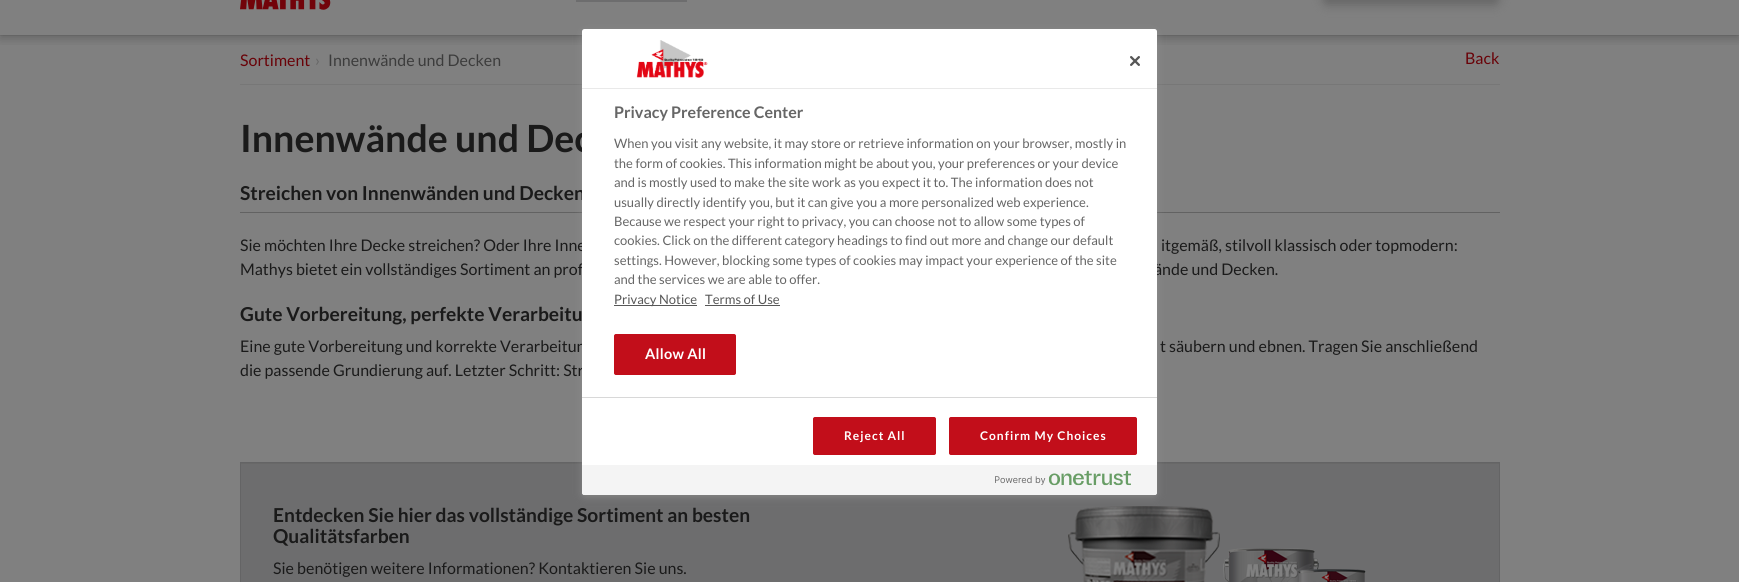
#include <cairo/cairo.h>
#include <math.h>
#include <stddef.h>

typedef struct { double x, y; const char *s; } line_t;
typedef struct { double x, y, w, h; unsigned color; } box_t;
static cairo_t *cr;

static void rgb(unsigned color)
{
	cairo_set_source_rgb(cr, (color >> 16) / 255.0, (color >> 8 & 255) / 255.0, (color & 255) / 255.0);
}

static void tracked(double x, double y, const char *s, double letter, double word)
{
	cairo_move_to(cr, x, y);
	while (*s) {
		char ch[5] = {0};
		int n = 0;
		do ch[n++] = *s++; while ((*s & 0xC0) == 0x80);
		cairo_show_text(cr, ch);
		cairo_rel_move_to(cr, letter + word * (*ch == ' '), 0);
	}
}

static void rrect(double x, double y, double w, double h, double r)
{
	cairo_new_sub_path(cr);
	cairo_arc(cr, x + w - r, y + h - r, r, 0, M_PI / 2);
	cairo_arc(cr, x + r, y + h - r, r, M_PI / 2, M_PI);
	cairo_arc(cr, x + r, y + r, r, M_PI, 1.5 * M_PI);
	cairo_arc(cr, x + w - r, y + r, r, 1.5 * M_PI, 2 * M_PI);
	cairo_close_path(cr);
}

static void soft_shadow(double x, double y, double w, double h, double r, double blur, double alpha)
{
	cairo_push_group_with_content(cr, CAIRO_CONTENT_ALPHA);
	cairo_set_operator(cr, CAIRO_OPERATOR_SOURCE);
	for (int i = 15; i >= -15 && fmin(w, h) + blur * i / 3 > 0; i -= 2) {
		double e = blur * i / 6;
		cairo_set_source_rgba(cr, 0, 0, 0, alpha * erfc((i - 1) / 8.5) / 2);
		rrect(x - e, y - e, w + 2 * e, h + 2 * e, fmax(0, fmin(r + e + blur * .6, fmin(w, h) / 2 + e)));
		cairo_fill(cr);
	}
	cairo_pattern_t *soft = cairo_pop_group(cr);
	cairo_mask(cr, soft);
	cairo_pattern_destroy(soft);
}

static void image(const char *path, double x, double y, double w, double h)
{
	cairo_surface_t *image = cairo_image_surface_create_from_png(path);
	cairo_save(cr);
	cairo_set_source_surface(cr, image, x, y);
	cairo_rectangle(cr, x, y, w, h);
	cairo_fill(cr);
	cairo_restore(cr);
	cairo_surface_destroy(image);
}

int main(void) {
	cairo_surface_t *surface = cairo_image_surface_create(CAIRO_FORMAT_RGB24, 1739, 582);
	cr = cairo_create(surface);
	cairo_font_options_t *options = cairo_font_options_create();
	cairo_font_options_set_hint_metrics(options, CAIRO_HINT_METRICS_OFF);
	cairo_font_options_set_hint_style(options, CAIRO_HINT_STYLE_NONE);
	cairo_set_font_options(cr, options);
	cairo_set_miter_limit(cr, 4);
	rgb(0x808080);
	cairo_paint(cr);
	rgb(0x777777);
	cairo_rectangle(cr, 0, 35, 1739, 1);
	cairo_fill(cr);
	cairo_save(cr);
	cairo_rectangle(cr, 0, 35, 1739, 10);
	cairo_clip(cr);
	rgb(0x000000);
	soft_shadow(0, -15, 1739, 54, 0, 5, 0.2);
	cairo_restore(cr);
	image("img/1.png", 240, 0, 91, 10);
	cairo_new_path(cr);
	cairo_move_to(cr, 581, -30);
	cairo_line_to(cr, 682, -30);
	cairo_line_to(cr, 682, -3);
	cairo_line_to(cr, 581, -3);
	cairo_close_path(cr);
	rgb(0x6d6d6e);
	cairo_set_line_width(cr, 10);
	cairo_stroke(cr);
	rgb(0x666666);
	soft_shadow(1323, -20, 176, 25, 5, 5, 1);
	{
		static const box_t items[] = {
			{240, 84, 1260, 1, 0x777777},
			{240, 212, 1260, 1, 0x626262},
			{241, 464, 1258, 118, 0x6d6d6e},
			{241, 463, 1258, 1, 0x686868},
		};
		for (size_t i = 0; i < sizeof items / sizeof *items; i++) {
			rgb(items[i].color);
			cairo_rectangle(cr, items[i].x, items[i].y, items[i].w, items[i].h);
			cairo_fill(cr);
		}
	}
	cairo_rectangle(cr, 240.5, 462.5, 1259, 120);
	rgb(0x646465);
	cairo_set_line_width(cr, 1);
	cairo_stroke(cr);
	image("img/2.png", 1068, 506, 298, 76);
	rgb(0x999999);
	soft_shadow(585, 34, 569, 460, 0, 5, 1);
	cairo_select_font_face(cr, "Lato", CAIRO_FONT_SLANT_NORMAL, CAIRO_FONT_WEIGHT_NORMAL);
	cairo_set_font_size(cr, 16);
	rgb(0x690208);
	cairo_move_to(cr, 240, 66);
	cairo_show_text(cr, "Sortiment");
	rgb(0x666666);
	cairo_move_to(cr, 315, 66);
	cairo_show_text(cr, "›");
	rgb(0x3c3c3c);
	cairo_move_to(cr, 328, 66);
	cairo_show_text(cr, "Innenwände und Decken");
	rgb(0x690208);
	cairo_move_to(cr, 1465, 64);
	cairo_show_text(cr, "Back");
	cairo_select_font_face(cr, "Lato", CAIRO_FONT_SLANT_NORMAL, CAIRO_FONT_WEIGHT_BOLD);
	cairo_set_font_size(cr, 37.5);
	rgb(0x1a1a1a);
	cairo_move_to(cr, 240, 152);
	cairo_show_text(cr, "Innenwände und Dec");
	cairo_set_font_size(cr, 19.2);
	cairo_move_to(cr, 240, 200);
	cairo_show_text(cr, "Streichen von Innenwänden und Decken");
	cairo_select_font_face(cr, "Lato", CAIRO_FONT_SLANT_NORMAL, CAIRO_FONT_WEIGHT_NORMAL);
	cairo_set_font_size(cr, 16);
	{
		static const line_t items[] = {
			{240, 251, "Sie möchten Ihre Decke streichen? Oder Ihre Inne"},
			{1161, 251, "itgemäß, stilvoll klassisch oder topmodern:"},
			{240, 275, "Mathys bietet ein vollständiges Sortiment an prof"},
			{1154, 275, "ände und Decken."},
		};
		for (size_t i = 0; i < sizeof items / sizeof *items; i++) {
			cairo_move_to(cr, items[i].x, items[i].y);
			cairo_show_text(cr, items[i].s);
		}
	}
	cairo_select_font_face(cr, "Lato", CAIRO_FONT_SLANT_NORMAL, CAIRO_FONT_WEIGHT_BOLD);
	cairo_set_font_size(cr, 19.2);
	cairo_move_to(cr, 240, 321);
	cairo_show_text(cr, "Gute Vorbereitung, perfekte Verarbeitu");
	cairo_select_font_face(cr, "Lato", CAIRO_FONT_SLANT_NORMAL, CAIRO_FONT_WEIGHT_NORMAL);
	cairo_set_font_size(cr, 16);
	{
		static const line_t items[] = {
			{240, 352, "Eine gute Vorbereitung und korrekte Verarbeitun"},
			{1160, 352, "t säubern und ebnen. Tragen Sie anschließend"},
			{240, 376, "die passende Grundierung auf. Letzter Schritt: Str"},
		};
		for (size_t i = 0; i < sizeof items / sizeof *items; i++) {
			cairo_move_to(cr, items[i].x, items[i].y);
			cairo_show_text(cr, items[i].s);
		}
	}
	cairo_select_font_face(cr, "Lato", CAIRO_FONT_SLANT_NORMAL, CAIRO_FONT_WEIGHT_BOLD);
	cairo_set_font_size(cr, 19.2);
	cairo_move_to(cr, 273, 522);
	cairo_show_text(cr, "Entdecken Sie hier das vollständige Sortiment an besten");
	cairo_move_to(cr, 273, 543);
	cairo_show_text(cr, "Qualitätsfarben");
	cairo_select_font_face(cr, "Lato", CAIRO_FONT_SLANT_NORMAL, CAIRO_FONT_WEIGHT_NORMAL);
	cairo_set_font_size(cr, 16);
	cairo_move_to(cr, 273, 574);
	cairo_show_text(cr, "Sie benötigen weitere Informationen? Kontaktieren Sie uns.");
	rgb(0xffffff);
	rrect(582, 29, 575, 466, 2.5);
	cairo_fill(cr);
	rgb(0xe9e9e9);
	cairo_rectangle(cr, 582, 88, 575, 1);
	cairo_fill(cr);
	image("img/3.png", 636, 40, 72, 38);
	image("img/4.png", 1130, 56, 10, 10);
	cairo_select_font_face(cr, "Lato", CAIRO_FONT_SLANT_NORMAL, CAIRO_FONT_WEIGHT_BOLD);
	rgb(0x666666);
	cairo_move_to(cr, 614, 118);
	cairo_show_text(cr, "Privacy Preference Center");
	cairo_select_font_face(cr, "Lato", CAIRO_FONT_SLANT_NORMAL, CAIRO_FONT_WEIGHT_NORMAL);
	cairo_set_font_size(cr, 13);
	{
		static const line_t items[] = {
			{614, 148, "When you visit any website, it may store or retrieve information on your browser, mostly in"},
			{614, 168, "the form of cookies. This information might be about you, your preferences or your device"},
			{614, 187, "and is mostly used to make the site work as you expect it to. The information does not"},
			{614, 207, "usually directly identify you, but it can give you a more personalized web experience."},
			{614, 226, "Because we respect your right to privacy, you can choose not to allow some types of"},
			{614, 245, "cookies. Click on the different category headings to find out more and change our default"},
			{614, 265, "settings. However, blocking some types of cookies may impact your experience of the site"},
			{614, 284, "and the services we are able to offer."},
		};
		for (size_t i = 0; i < sizeof items / sizeof *items; i++) {
			cairo_move_to(cr, items[i].x, items[i].y);
			cairo_show_text(cr, items[i].s);
		}
	}
	rgb(0x575757);
	cairo_rectangle(cr, 614, 305, 83, 1);
	cairo_fill(cr);
	cairo_move_to(cr, 614, 304);
	cairo_show_text(cr, "Privacy Notice");
	cairo_move_to(cr, 705, 304);
	cairo_show_text(cr, "Terms of Use");
	cairo_rectangle(cr, 705, 305, 75, 1);
	cairo_fill(cr);
	rgb(0xc20e1a);
	rrect(614.5, 334.5, 121, 40, 1.5);
	cairo_fill_preserve(cr);
	cairo_stroke(cr);
	cairo_select_font_face(cr, "Lato", CAIRO_FONT_SLANT_NORMAL, CAIRO_FONT_WEIGHT_BOLD);
	cairo_set_font_size(cr, 14.5);
	rgb(0xffffff);
	tracked(645, 359, "Allow All", 0.25, 0);
	rgb(0xd8d8d8);
	cairo_rectangle(cr, 582, 397, 575, 1);
	cairo_fill(cr);
	rgb(0xc20e1a);
	rrect(813.5, 417.5, 122, 37, 1.5);
	cairo_fill_preserve(cr);
	cairo_stroke(cr);
	cairo_set_font_size(cr, 12);
	rgb(0xffffff);
	tracked(844, 440, "Reject All", 1, 0);
	rgb(0xc20e1a);
	rrect(949.5, 417.5, 187, 37, 1.5);
	cairo_fill_preserve(cr);
	cairo_stroke(cr);
	rgb(0xffffff);
	tracked(980, 440, "Confirm My Choices", 1, 0);
	rgb(0xf4f4f4);
	cairo_new_path(cr);
	cairo_move_to(cr, 582, 465);
	cairo_line_to(cr, 1157, 465);
	cairo_line_to(cr, 1157, 492.5);
	cairo_curve_to(cr, 1157, 494, 1156, 495, 1154.5, 495);
	cairo_line_to(cr, 584.5, 495);
	cairo_curve_to(cr, 583, 495, 582, 494, 582, 492.5);
	cairo_close_path(cr);
	cairo_fill(cr);
	image("img/5.png", 995, 470, 136, 16);
	cairo_surface_write_to_png(surface, "page.png");
	cairo_font_options_destroy(options);
	cairo_destroy(cr);
	cairo_surface_destroy(surface);
	return 0;
}
